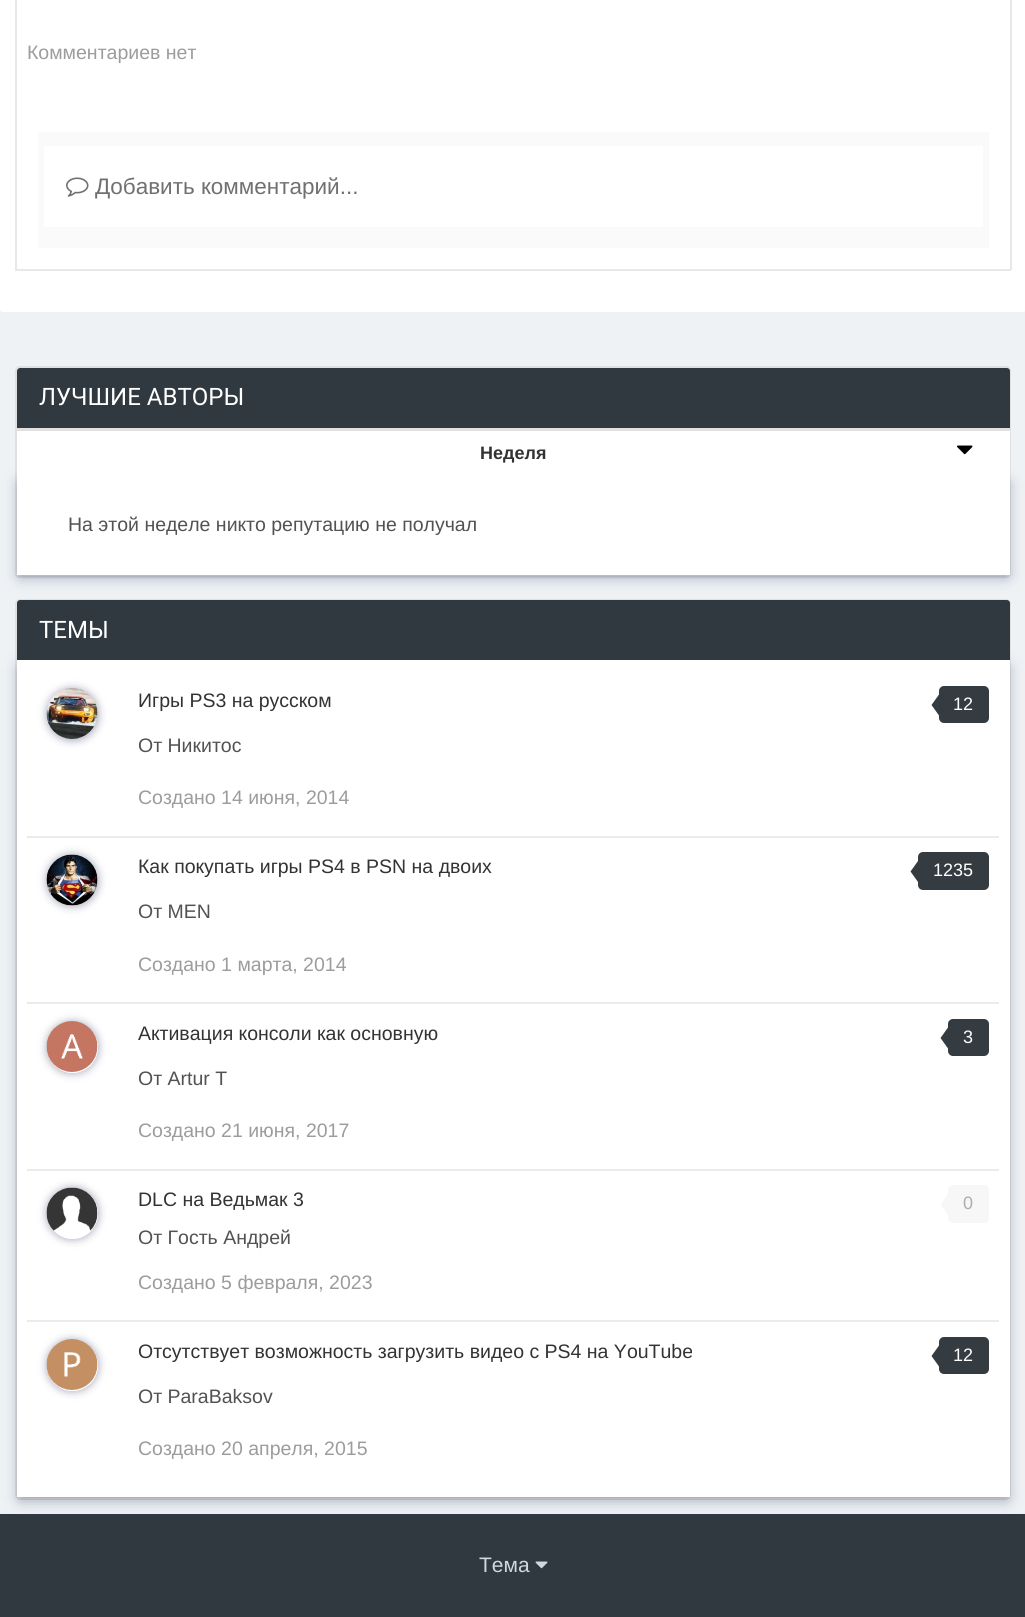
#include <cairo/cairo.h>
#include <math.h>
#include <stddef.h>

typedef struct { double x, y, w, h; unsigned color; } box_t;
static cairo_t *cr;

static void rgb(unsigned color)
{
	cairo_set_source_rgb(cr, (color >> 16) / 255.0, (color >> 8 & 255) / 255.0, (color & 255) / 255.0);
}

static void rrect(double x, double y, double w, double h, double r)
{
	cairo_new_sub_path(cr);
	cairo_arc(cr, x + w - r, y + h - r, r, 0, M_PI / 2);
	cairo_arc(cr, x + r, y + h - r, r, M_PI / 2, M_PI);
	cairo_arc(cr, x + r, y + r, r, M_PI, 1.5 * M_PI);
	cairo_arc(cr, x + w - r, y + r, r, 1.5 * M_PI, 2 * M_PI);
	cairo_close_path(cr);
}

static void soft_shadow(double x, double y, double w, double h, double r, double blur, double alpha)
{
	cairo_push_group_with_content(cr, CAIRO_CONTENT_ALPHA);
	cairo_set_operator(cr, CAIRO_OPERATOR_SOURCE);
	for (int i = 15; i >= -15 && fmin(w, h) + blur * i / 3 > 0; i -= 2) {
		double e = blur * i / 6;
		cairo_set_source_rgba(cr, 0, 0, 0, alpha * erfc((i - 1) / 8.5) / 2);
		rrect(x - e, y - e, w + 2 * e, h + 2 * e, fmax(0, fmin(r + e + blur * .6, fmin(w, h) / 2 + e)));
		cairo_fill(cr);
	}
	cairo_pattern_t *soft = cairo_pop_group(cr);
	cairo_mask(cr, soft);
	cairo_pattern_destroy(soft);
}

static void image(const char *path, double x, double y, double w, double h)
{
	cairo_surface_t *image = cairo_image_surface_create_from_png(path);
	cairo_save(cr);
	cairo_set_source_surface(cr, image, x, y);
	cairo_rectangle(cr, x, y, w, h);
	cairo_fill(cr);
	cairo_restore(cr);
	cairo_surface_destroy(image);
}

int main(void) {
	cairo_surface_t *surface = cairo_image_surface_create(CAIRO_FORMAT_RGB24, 1025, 1617);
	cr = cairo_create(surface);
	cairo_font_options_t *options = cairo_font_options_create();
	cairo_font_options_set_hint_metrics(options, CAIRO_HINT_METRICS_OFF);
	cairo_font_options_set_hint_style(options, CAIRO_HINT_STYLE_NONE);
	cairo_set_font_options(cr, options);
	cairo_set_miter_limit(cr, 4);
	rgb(0xeef2f5);
	cairo_paint(cr);
	rgb(0xffffff);
	rrect(0, -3, 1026, 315, 3);
	cairo_fill(cr);
	{
		static const box_t items[] = {
			{1010, 0, 2, 270, 0xe8e8e8},
			{15, 269, 996, 2, 0xe8e8e8},
			{15, 0, 2, 270, 0xe8e8e8},
			{38, 132, 951, 116, 0xfafafa},
			{44, 146, 939, 81, 0xffffff},
		};
		for (size_t i = 0; i < sizeof items / sizeof *items; i++) {
			rgb(items[i].color);
			cairo_rectangle(cr, items[i].x, items[i].y, items[i].w, items[i].h);
			cairo_fill(cr);
		}
	}
	image("img/1.png", 66, 177, 23, 20);
	rgb(0xd6dadd);
	cairo_new_path(cr);
	cairo_move_to(cr, 15, 572);
	cairo_line_to(cr, 15, 573);
	cairo_curve_to(cr, 15, 576, 17, 578, 20, 578);
	cairo_line_to(cr, 1006, 578);
	cairo_curve_to(cr, 1009, 578, 1011, 576, 1011, 573);
	cairo_line_to(cr, 1011, 572);
	cairo_curve_to(cr, 1011, 574, 1009, 576, 1006, 576);
	cairo_line_to(cr, 20, 576);
	cairo_curve_to(cr, 17, 576, 15, 574, 15, 572);
	cairo_close_path(cr);
	cairo_fill(cr);
	rrect(16, 367, 994, 208, 4);
	rgb(0xe0e0e0);
	cairo_stroke(cr);
	rgb(0x303940);
	cairo_new_path(cr);
	cairo_move_to(cr, 20, 368);
	cairo_line_to(cr, 1007, 368);
	cairo_curve_to(cr, 1008.5, 368, 1010, 369.5, 1010, 371);
	cairo_line_to(cr, 1010, 428);
	cairo_line_to(cr, 17, 428);
	cairo_line_to(cr, 17, 371);
	cairo_curve_to(cr, 17, 369.5, 18.5, 368, 20, 368);
	cairo_close_path(cr);
	cairo_fill(cr);
	rgb(0xe0e0e0);
	cairo_rectangle(cr, 17, 428, 993, 3);
	cairo_fill(cr);
	rgb(0x464b6e);
	soft_shadow(20, 483, 987, 93, 0, 7.5, 0.51);
	rgb(0xffffff);
	cairo_rectangle(cr, 17, 431, 993, 144);
	cairo_fill(cr);
	image("img/2.png", 957, 445, 16, 10);
	rgb(0xd6dadd);
	cairo_new_path(cr);
	cairo_move_to(cr, 15, 1494);
	cairo_curve_to(cr, 15, 1497, 17, 1500, 20, 1500);
	cairo_line_to(cr, 1006, 1500);
	cairo_curve_to(cr, 1009, 1500, 1011, 1497, 1011, 1494);
	cairo_curve_to(cr, 1011, 1496, 1009, 1498, 1006, 1498);
	cairo_line_to(cr, 20, 1498);
	cairo_curve_to(cr, 17, 1498, 15, 1496, 15, 1494);
	cairo_close_path(cr);
	cairo_fill(cr);
	rrect(16, 600, 994, 898, 4);
	rgb(0xe0e0e0);
	cairo_stroke(cr);
	rgb(0x303940);
	cairo_rectangle(cr, 0, 1514, 1025, 103);
	cairo_fill(cr);
	rgb(0x464b6e);
	soft_shadow(20, 668, 987, 831, 0, 7.5, 0.51);
	rgb(0x303940);
	cairo_new_path(cr);
	cairo_move_to(cr, 20, 600);
	cairo_line_to(cr, 1007, 600);
	cairo_curve_to(cr, 1008.5, 600, 1010, 601.5, 1010, 603);
	cairo_line_to(cr, 1010, 660);
	cairo_line_to(cr, 17, 660);
	cairo_line_to(cr, 17, 603);
	cairo_curve_to(cr, 17, 601.5, 18.5, 600, 20, 600);
	cairo_close_path(cr);
	cairo_fill(cr);
	rgb(0xffffff);
	cairo_rectangle(cr, 17, 660, 993, 837);
	cairo_fill(cr);
	rgb(0xebebeb);
	cairo_rectangle(cr, 27, 836, 972, 2);
	cairo_fill(cr);
	rgb(0x464b6e);
	soft_shadow(47, 689, 51, 51, 25.5, 4.5, 0.51);
	image("img/3.png", 46, 688, 52, 51);
	rgb(0x353c41);
	rrect(939, 686, 50, 37, 5);
	cairo_fill(cr);
	cairo_new_path(cr);
	cairo_move_to(cr, 939, 694.5);
	cairo_line_to(cr, 939, 715.5);
	cairo_line_to(cr, 931.5, 705);
	cairo_close_path(cr);
	cairo_fill(cr);
	rgb(0xebebeb);
	cairo_rectangle(cr, 27, 1002, 972, 2);
	cairo_fill(cr);
	rgb(0x464b6e);
	soft_shadow(47, 855, 51, 51, 25.5, 4.5, 0.51);
	image("img/4.png", 46, 854, 52, 52);
	rgb(0x353c41);
	rrect(918, 852, 71, 38, 5);
	cairo_fill(cr);
	cairo_new_path(cr);
	cairo_move_to(cr, 918, 861);
	cairo_line_to(cr, 918, 882);
	cairo_line_to(cr, 910.5, 871.5);
	cairo_close_path(cr);
	cairo_fill(cr);
	rgb(0xebebeb);
	cairo_rectangle(cr, 27, 1169, 972, 2);
	cairo_fill(cr);
	cairo_save(cr);
	cairo_set_fill_rule(cr, CAIRO_FILL_RULE_EVEN_ODD);
	cairo_new_path(cr);
	cairo_move_to(cr, 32, 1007);
	cairo_line_to(cr, 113, 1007);
	cairo_line_to(cr, 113, 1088);
	cairo_line_to(cr, 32, 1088);
	cairo_close_path(cr);
	cairo_move_to(cr, 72.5, 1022);
	cairo_curve_to(cr, 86.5, 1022, 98, 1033.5, 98, 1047.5);
	cairo_curve_to(cr, 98, 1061.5, 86.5, 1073, 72.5, 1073);
	cairo_curve_to(cr, 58.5, 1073, 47, 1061.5, 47, 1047.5);
	cairo_curve_to(cr, 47, 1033.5, 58.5, 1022, 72.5, 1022);
	cairo_close_path(cr);
	cairo_clip(cr);
	rgb(0x464b6e);
	soft_shadow(47, 1022, 51, 51, 25.5, 4.5, 0.51);
	cairo_restore(cr);
	image("img/5.png", 46, 1021, 52, 51);
	rgb(0x353c41);
	rrect(948, 1019, 41, 37, 5);
	cairo_fill(cr);
	cairo_new_path(cr);
	cairo_move_to(cr, 948, 1027.5);
	cairo_line_to(cr, 948, 1048.5);
	cairo_line_to(cr, 940.5, 1038);
	cairo_close_path(cr);
	cairo_fill(cr);
	rgb(0xebebeb);
	cairo_rectangle(cr, 27, 1320, 972, 2);
	cairo_fill(cr);
	cairo_save(cr);
	cairo_set_fill_rule(cr, CAIRO_FILL_RULE_EVEN_ODD);
	cairo_new_path(cr);
	cairo_move_to(cr, 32, 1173);
	cairo_line_to(cr, 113, 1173);
	cairo_line_to(cr, 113, 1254);
	cairo_line_to(cr, 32, 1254);
	cairo_close_path(cr);
	cairo_move_to(cr, 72.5, 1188);
	cairo_curve_to(cr, 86.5, 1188, 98, 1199.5, 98, 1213.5);
	cairo_curve_to(cr, 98, 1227.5, 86.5, 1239, 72.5, 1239);
	cairo_curve_to(cr, 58.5, 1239, 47, 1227.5, 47, 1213.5);
	cairo_curve_to(cr, 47, 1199.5, 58.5, 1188, 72.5, 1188);
	cairo_close_path(cr);
	cairo_clip(cr);
	rgb(0x464b6e);
	soft_shadow(47, 1188, 51, 51, 25.5, 4.5, 0.51);
	cairo_restore(cr);
	image("img/6.png", 46, 1187, 52, 44);
	rgb(0xf7f7f7);
	rrect(948, 1185, 41, 38, 5);
	cairo_fill(cr);
	cairo_new_path(cr);
	cairo_move_to(cr, 948, 1194);
	cairo_line_to(cr, 948, 1215);
	cairo_line_to(cr, 940.5, 1204.5);
	cairo_close_path(cr);
	cairo_fill(cr);
	cairo_save(cr);
	cairo_set_fill_rule(cr, CAIRO_FILL_RULE_EVEN_ODD);
	cairo_new_path(cr);
	cairo_move_to(cr, 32, 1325);
	cairo_line_to(cr, 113, 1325);
	cairo_line_to(cr, 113, 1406);
	cairo_line_to(cr, 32, 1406);
	cairo_close_path(cr);
	cairo_move_to(cr, 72.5, 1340);
	cairo_curve_to(cr, 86.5, 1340, 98, 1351.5, 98, 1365.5);
	cairo_curve_to(cr, 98, 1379.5, 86.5, 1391, 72.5, 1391);
	cairo_curve_to(cr, 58.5, 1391, 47, 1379.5, 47, 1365.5);
	cairo_curve_to(cr, 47, 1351.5, 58.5, 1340, 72.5, 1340);
	cairo_close_path(cr);
	cairo_clip(cr);
	rgb(0x464b6e);
	soft_shadow(47, 1340, 51, 51, 25.5, 4.5, 0.51);
	cairo_restore(cr);
	image("img/7.png", 46, 1339, 52, 51);
	rgb(0x353c41);
	rrect(939, 1337, 50, 37, 5);
	cairo_fill(cr);
	cairo_new_path(cr);
	cairo_move_to(cr, 939, 1345.5);
	cairo_line_to(cr, 939, 1366.5);
	cairo_line_to(cr, 931.5, 1356);
	cairo_close_path(cr);
	cairo_fill(cr);
	image("img/8.png", 535, 1561, 13, 8);
	cairo_select_font_face(cr, "Liberation Sans", CAIRO_FONT_SLANT_NORMAL, CAIRO_FONT_WEIGHT_NORMAL);
	cairo_set_font_size(cr, 19.5);
	rgb(0x9c9c9c);
	cairo_move_to(cr, 27, 59);
	cairo_show_text(cr, "Комментариев нет");
	cairo_set_font_size(cr, 22.5);
	rgb(0x707070);
	cairo_move_to(cr, 95, 194);
	cairo_show_text(cr, "Добавить комментарий...");
	cairo_select_font_face(cr, "Roboto", CAIRO_FONT_SLANT_NORMAL, CAIRO_FONT_WEIGHT_NORMAL);
	cairo_set_font_size(cr, 24);
	rgb(0xffffff);
	cairo_move_to(cr, 39, 405);
	cairo_show_text(cr, "ЛУЧШИЕ АВТОРЫ");
	cairo_select_font_face(cr, "Liberation Sans", CAIRO_FONT_SLANT_NORMAL, CAIRO_FONT_WEIGHT_BOLD);
	cairo_set_font_size(cr, 18);
	rgb(0x333333);
	cairo_move_to(cr, 480, 459);
	cairo_show_text(cr, "Неделя");
	cairo_select_font_face(cr, "Liberation Sans", CAIRO_FONT_SLANT_NORMAL, CAIRO_FONT_WEIGHT_NORMAL);
	cairo_set_font_size(cr, 19.5);
	rgb(0x525252);
	cairo_move_to(cr, 68, 531);
	cairo_show_text(cr, "На этой неделе никто репутацию не получал");
	cairo_select_font_face(cr, "Roboto", CAIRO_FONT_SLANT_NORMAL, CAIRO_FONT_WEIGHT_NORMAL);
	cairo_set_font_size(cr, 24);
	rgb(0xffffff);
	cairo_move_to(cr, 39, 638);
	cairo_show_text(cr, "ТЕМЫ");
	cairo_select_font_face(cr, "Liberation Sans", CAIRO_FONT_SLANT_NORMAL, CAIRO_FONT_WEIGHT_NORMAL);
	cairo_set_font_size(cr, 19.5);
	rgb(0x333333);
	cairo_move_to(cr, 138, 707);
	cairo_show_text(cr, "Игры PS3 на русском");
	cairo_set_font_size(cr, 18);
	rgb(0xffffff);
	cairo_move_to(cr, 953, 710);
	cairo_show_text(cr, "12");
	cairo_set_font_size(cr, 19.5);
	rgb(0x525252);
	cairo_move_to(cr, 138, 752);
	cairo_show_text(cr, "От Никитос");
	rgb(0x9c9c9c);
	cairo_move_to(cr, 138, 804);
	cairo_show_text(cr, "Создано 14 июня, 2014");
	rgb(0x333333);
	cairo_move_to(cr, 138, 873);
	cairo_show_text(cr, "Как покупать игры PS4 в PSN на двоих");
	cairo_set_font_size(cr, 18);
	rgb(0xffffff);
	cairo_move_to(cr, 933, 876);
	cairo_show_text(cr, "1235");
	cairo_set_font_size(cr, 19.5);
	rgb(0x525252);
	cairo_move_to(cr, 138, 918);
	cairo_show_text(cr, "От MEN");
	rgb(0x9c9c9c);
	cairo_move_to(cr, 138, 971);
	cairo_show_text(cr, "Создано 1 марта, 2014");
	rgb(0x333333);
	cairo_move_to(cr, 138, 1040);
	cairo_show_text(cr, "Активация консоли как основную");
	cairo_set_font_size(cr, 18);
	rgb(0xffffff);
	cairo_move_to(cr, 963, 1043);
	cairo_show_text(cr, "3");
	cairo_set_font_size(cr, 19.5);
	rgb(0x525252);
	cairo_move_to(cr, 138, 1085);
	cairo_show_text(cr, "От Artur T");
	rgb(0x9c9c9c);
	cairo_move_to(cr, 138, 1137);
	cairo_show_text(cr, "Создано 21 июня, 2017");
	rgb(0x333333);
	cairo_move_to(cr, 138, 1206);
	cairo_show_text(cr, "DLC на Ведьмак 3");
	cairo_set_font_size(cr, 18);
	rgb(0xadadad);
	cairo_move_to(cr, 963, 1209);
	cairo_show_text(cr, "0");
	cairo_set_font_size(cr, 19.5);
	rgb(0x525252);
	cairo_move_to(cr, 138, 1244);
	cairo_show_text(cr, "От Гость Андрей");
	rgb(0x9c9c9c);
	cairo_move_to(cr, 138, 1289);
	cairo_show_text(cr, "Создано 5 февраля, 2023");
	rgb(0x333333);
	cairo_move_to(cr, 138, 1358);
	cairo_show_text(cr, "Отсутствует возможность загрузить видео с PS4 на YouTube");
	cairo_set_font_size(cr, 18);
	rgb(0xffffff);
	cairo_move_to(cr, 953, 1361);
	cairo_show_text(cr, "12");
	cairo_set_font_size(cr, 19.5);
	rgb(0x525252);
	cairo_move_to(cr, 138, 1403);
	cairo_show_text(cr, "От ParaBaksov");
	rgb(0x9c9c9c);
	cairo_move_to(cr, 138, 1455);
	cairo_show_text(cr, "Создано 20 апреля, 2015");
	cairo_set_font_size(cr, 21);
	rgb(0xcfd8df);
	cairo_move_to(cr, 479, 1572);
	cairo_show_text(cr, "Тема");
	cairo_surface_write_to_png(surface, "page.png");
	cairo_font_options_destroy(options);
	cairo_destroy(cr);
	cairo_surface_destroy(surface);
	return 0;
}
